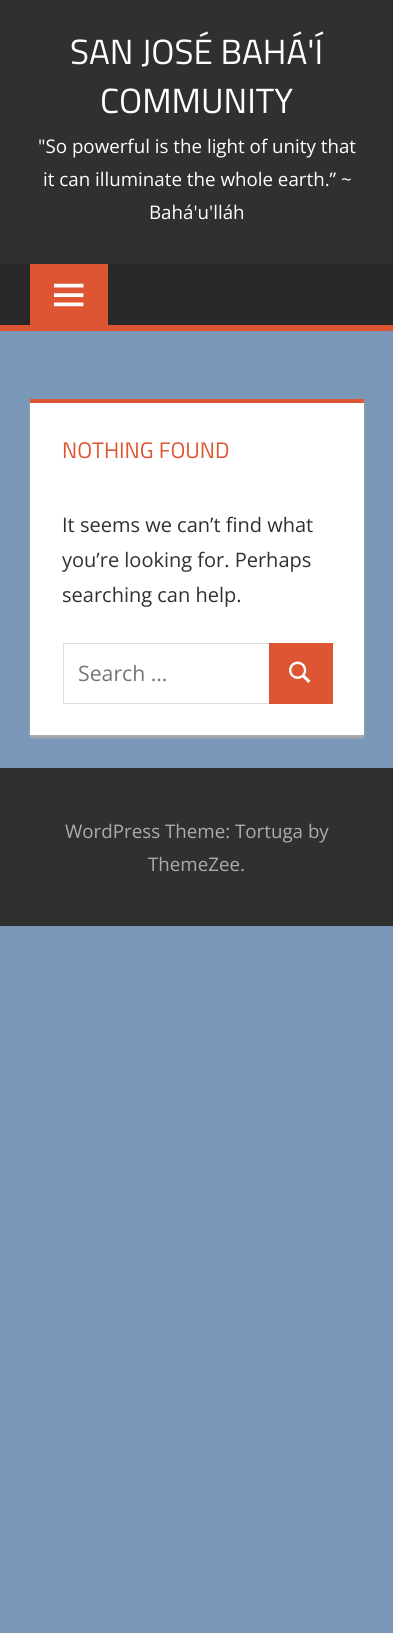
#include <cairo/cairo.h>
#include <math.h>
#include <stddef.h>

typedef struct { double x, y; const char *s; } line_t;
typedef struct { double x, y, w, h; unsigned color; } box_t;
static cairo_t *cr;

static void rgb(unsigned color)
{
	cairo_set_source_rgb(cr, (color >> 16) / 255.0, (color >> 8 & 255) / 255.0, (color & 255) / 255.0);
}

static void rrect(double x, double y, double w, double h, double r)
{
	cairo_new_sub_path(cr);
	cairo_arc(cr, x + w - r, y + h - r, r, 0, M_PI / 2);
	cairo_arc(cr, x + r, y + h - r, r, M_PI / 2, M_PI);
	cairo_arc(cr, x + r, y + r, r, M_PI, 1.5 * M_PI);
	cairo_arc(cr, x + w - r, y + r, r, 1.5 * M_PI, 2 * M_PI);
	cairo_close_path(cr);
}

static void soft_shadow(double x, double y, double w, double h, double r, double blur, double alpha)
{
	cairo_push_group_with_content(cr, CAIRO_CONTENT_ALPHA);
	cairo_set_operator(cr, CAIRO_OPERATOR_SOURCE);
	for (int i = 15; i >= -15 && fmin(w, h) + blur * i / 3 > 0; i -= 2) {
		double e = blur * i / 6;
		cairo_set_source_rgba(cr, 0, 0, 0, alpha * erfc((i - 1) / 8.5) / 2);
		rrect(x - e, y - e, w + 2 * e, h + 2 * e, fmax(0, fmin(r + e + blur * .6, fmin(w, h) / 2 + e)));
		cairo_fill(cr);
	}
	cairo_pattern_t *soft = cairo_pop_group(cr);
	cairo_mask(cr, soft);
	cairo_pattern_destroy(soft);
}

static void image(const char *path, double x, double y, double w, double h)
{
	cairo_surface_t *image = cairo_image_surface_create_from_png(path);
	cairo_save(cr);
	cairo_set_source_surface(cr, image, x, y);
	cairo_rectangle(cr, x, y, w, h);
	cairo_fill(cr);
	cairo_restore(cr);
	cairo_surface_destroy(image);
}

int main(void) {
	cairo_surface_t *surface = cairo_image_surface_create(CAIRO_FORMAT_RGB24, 393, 1633);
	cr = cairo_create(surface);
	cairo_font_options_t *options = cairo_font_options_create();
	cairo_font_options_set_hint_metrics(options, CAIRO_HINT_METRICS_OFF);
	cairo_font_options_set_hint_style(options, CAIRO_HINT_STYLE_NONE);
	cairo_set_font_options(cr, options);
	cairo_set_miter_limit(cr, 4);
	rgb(0x7b97b7);
	cairo_paint(cr);
	{
		static const box_t items[] = {
			{0, 0, 393, 264, 0x303030},
			{0, 265, 393, 60, 0x292929},
			{0, 264, 393, 1, 0x272727},
			{0, 325, 393, 6, 0xdd5533},
			{30, 264, 78, 61, 0xdd5533},
		};
		for (size_t i = 0; i < sizeof items / sizeof *items; i++) {
			rgb(items[i].color);
			cairo_rectangle(cr, items[i].x, items[i].y, items[i].w, items[i].h);
			cairo_fill(cr);
		}
	}
	image("img/1.png", 54, 283, 30, 24);
	rgb(0xaaaaaa);
	soft_shadow(30, 401, 334, 337, 0, 1, 1);
	rgb(0xffffff);
	cairo_rectangle(cr, 30, 403, 334, 332);
	cairo_fill(cr);
	rgb(0xdd5533);
	cairo_rectangle(cr, 30, 399, 334, 4);
	cairo_fill(cr);
	cairo_rectangle(cr, 63.5, 643.5, 206, 60);
	rgb(0xdddddd);
	cairo_set_line_width(cr, 1);
	cairo_stroke(cr);
	rgb(0xdd5533);
	cairo_rectangle(cr, 269, 643, 64, 61);
	cairo_fill(cr);
	image("img/2.png", 289, 661, 22, 22);
	rgb(0x303030);
	cairo_rectangle(cr, 0, 768, 393, 158);
	cairo_fill(cr);
	cairo_select_font_face(cr, "Titillium Web", CAIRO_FONT_SLANT_NORMAL, CAIRO_FONT_WEIGHT_NORMAL);
	cairo_set_font_size(cr, 35);
	rgb(0xffffff);
	cairo_move_to(cr, 70, 64);
	cairo_show_text(cr, "SAN JOSÉ BAHÁ'Í");
	cairo_move_to(cr, 100, 113);
	cairo_show_text(cr, "COMMUNITY");
	cairo_select_font_face(cr, "Open Sans", CAIRO_FONT_SLANT_NORMAL, CAIRO_FONT_WEIGHT_NORMAL);
	cairo_set_font_size(cr, 18.75);
	{
		static const line_t items[] = {
			{38, 153, "\"So powerful is the light of unity that"},
			{43, 186, "it can illuminate the whole earth.” ~"},
			{149, 219, "Bahá'u'lláh"},
		};
		for (size_t i = 0; i < sizeof items / sizeof *items; i++) {
			cairo_move_to(cr, items[i].x, items[i].y);
			cairo_show_text(cr, items[i].s);
		}
	}
	cairo_select_font_face(cr, "Titillium Web", CAIRO_FONT_SLANT_NORMAL, CAIRO_FONT_WEIGHT_NORMAL);
	cairo_set_font_size(cr, 22.5);
	rgb(0xdd5533);
	cairo_move_to(cr, 62, 458);
	cairo_show_text(cr, "NOTHING FOUND");
	cairo_select_font_face(cr, "Open Sans", CAIRO_FONT_SLANT_NORMAL, CAIRO_FONT_WEIGHT_NORMAL);
	cairo_set_font_size(cr, 20);
	rgb(0x303030);
	{
		static const line_t items[] = {
			{62, 532, "It seems we can’t find what"},
			{62, 567, "you’re looking for. Perhaps"},
			{62, 602, "searching can help."},
		};
		for (size_t i = 0; i < sizeof items / sizeof *items; i++) {
			cairo_move_to(cr, items[i].x, items[i].y);
			cairo_show_text(cr, items[i].s);
		}
	}
	cairo_set_font_size(cr, 21.25);
	rgb(0x757575);
	cairo_move_to(cr, 78, 681);
	cairo_show_text(cr, "Search …");
	cairo_set_font_size(cr, 18.75);
	rgb(0xacacac);
	cairo_move_to(cr, 65, 838);
	cairo_show_text(cr, "WordPress Theme: Tortuga by");
	cairo_move_to(cr, 148, 871);
	cairo_show_text(cr, "ThemeZee.");
	cairo_surface_write_to_png(surface, "page.png");
	cairo_font_options_destroy(options);
	cairo_destroy(cr);
	cairo_surface_destroy(surface);
	return 0;
}
